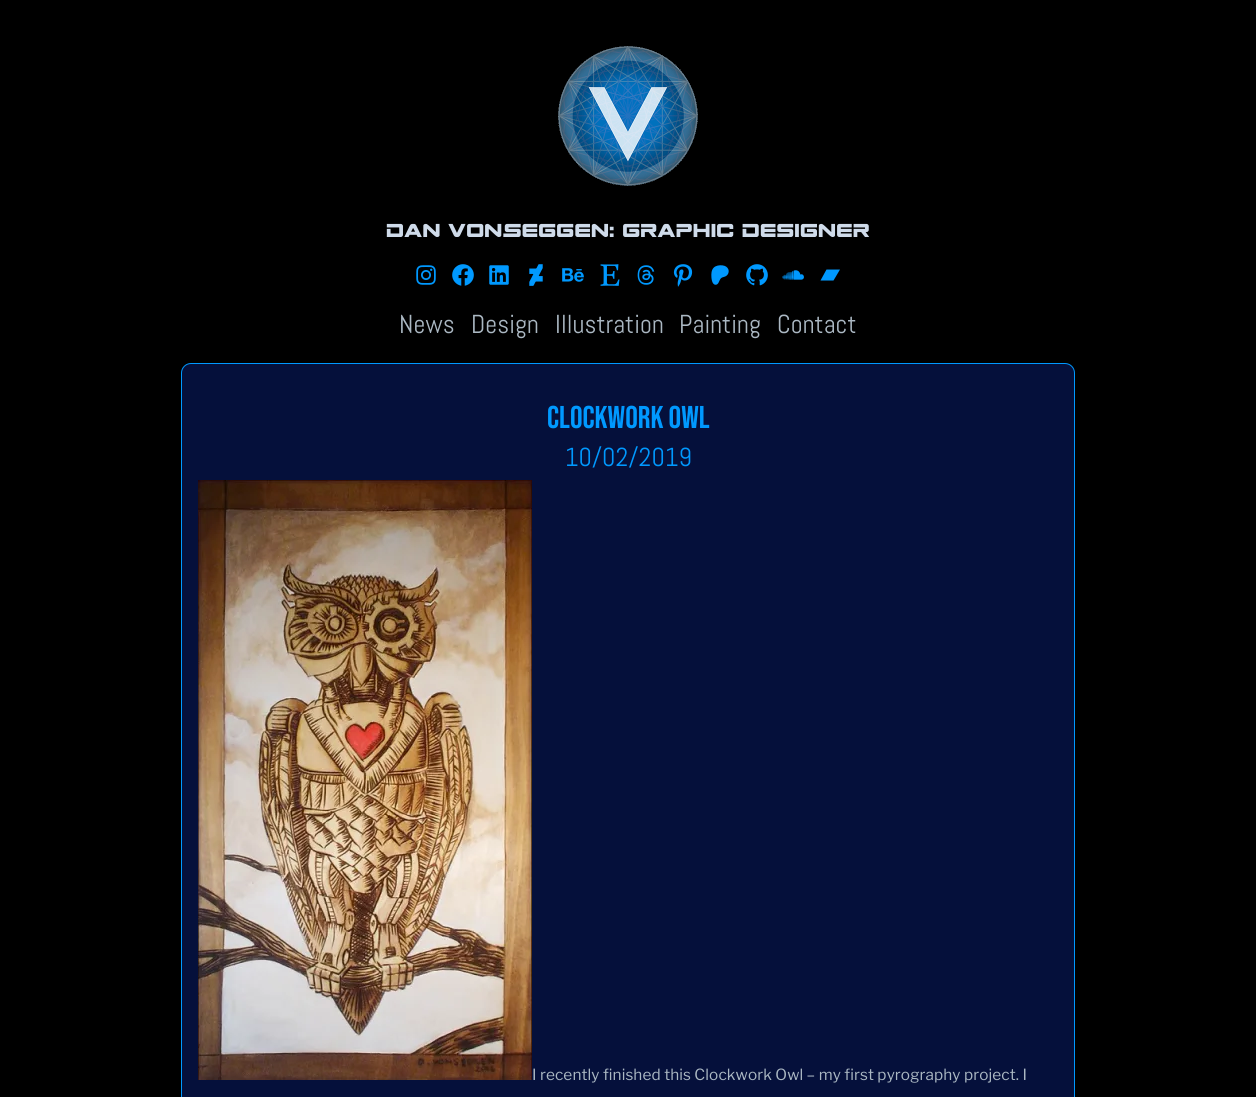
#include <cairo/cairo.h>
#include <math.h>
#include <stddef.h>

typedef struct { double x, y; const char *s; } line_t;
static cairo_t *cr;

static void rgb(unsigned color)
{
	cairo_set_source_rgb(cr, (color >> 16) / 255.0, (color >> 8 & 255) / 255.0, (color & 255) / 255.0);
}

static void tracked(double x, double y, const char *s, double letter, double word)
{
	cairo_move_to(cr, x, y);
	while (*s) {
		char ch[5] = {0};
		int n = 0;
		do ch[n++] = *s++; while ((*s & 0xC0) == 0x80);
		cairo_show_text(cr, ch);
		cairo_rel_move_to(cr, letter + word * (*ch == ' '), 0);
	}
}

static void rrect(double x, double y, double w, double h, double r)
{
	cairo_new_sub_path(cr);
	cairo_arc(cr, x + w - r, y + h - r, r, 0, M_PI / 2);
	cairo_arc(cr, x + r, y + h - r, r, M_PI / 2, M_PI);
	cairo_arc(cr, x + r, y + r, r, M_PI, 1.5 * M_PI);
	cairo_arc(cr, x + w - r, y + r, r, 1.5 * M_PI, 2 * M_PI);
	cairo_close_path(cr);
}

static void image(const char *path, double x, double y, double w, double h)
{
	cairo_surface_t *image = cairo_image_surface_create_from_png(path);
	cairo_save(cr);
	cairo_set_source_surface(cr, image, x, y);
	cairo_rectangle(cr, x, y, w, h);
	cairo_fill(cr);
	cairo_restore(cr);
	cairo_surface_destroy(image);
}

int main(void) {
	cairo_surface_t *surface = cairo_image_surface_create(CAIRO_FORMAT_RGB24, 1256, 1097);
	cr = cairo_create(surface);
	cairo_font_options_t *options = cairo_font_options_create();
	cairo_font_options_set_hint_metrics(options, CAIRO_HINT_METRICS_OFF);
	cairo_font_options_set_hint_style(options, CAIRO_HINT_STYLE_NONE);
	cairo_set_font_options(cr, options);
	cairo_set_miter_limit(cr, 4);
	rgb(0x000000);
	cairo_paint(cr);
	image("img/1.png", 558, 46, 140, 140);
	image("img/2.png", 416, 265, 20, 20);
	image("img/3.png", 452, 264, 22, 22);
	image("img/4.png", 489, 265, 20, 20);
	image("img/5.png", 529, 264, 14, 22);
	image("img/6.png", 562, 268, 22, 14);
	image("img/7.png", 600, 264, 20, 22);
	image("img/8.png", 637, 265, 18, 20);
	image("img/9.png", 673, 264, 20, 23);
	image("img/10.png", 711, 265, 18, 20);
	image("img/11.png", 746, 264, 22, 22);
	image("img/12.png", 782, 270, 22, 10);
	rgb(0x0099ff);
	cairo_new_path(cr);
	cairo_move_to(cr, 833.5, 280.5);
	cairo_line_to(cr, 820.5, 280.5);
	cairo_line_to(cr, 826.5, 269.5);
	cairo_line_to(cr, 840, 269.5);
	cairo_line_to(cr, 833.5, 280.5);
	cairo_fill(cr);
	rgb(0x05103b);
	rrect(181.5, 363.5, 893, 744, 9.5);
	cairo_fill_preserve(cr);
	rgb(0x0099ff);
	cairo_set_line_width(cr, 1);
	cairo_stroke(cr);
	image("img/13.png", 198, 480, 334, 600);
	cairo_select_font_face(cr, "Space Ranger", CAIRO_FONT_SLANT_NORMAL, CAIRO_FONT_WEIGHT_NORMAL);
	cairo_set_font_size(cr, 26);
	rgb(0xcfdbea);
	tracked(386, 237, "Dan vonSeggen: Graphic Designer", 0.25, 0);
	cairo_select_font_face(cr, "Abel", CAIRO_FONT_SLANT_NORMAL, CAIRO_FONT_WEIGHT_NORMAL);
	rgb(0xabb8c3);
	{
		static const line_t items[] = {
			{399, 333, "News"},
			{471, 333, "Design"},
			{555, 333, "Illustration"},
			{679, 333, "Painting"},
			{777, 333, "Contact"},
		};
		for (size_t i = 0; i < sizeof items / sizeof *items; i++) {
			tracked(items[i].x, items[i].y, items[i].s, 0.1, 0);
		}
	}
	cairo_select_font_face(cr, "Bebas Neue", CAIRO_FONT_SLANT_NORMAL, CAIRO_FONT_WEIGHT_NORMAL);
	cairo_set_font_size(cr, 31.5);
	rgb(0x0099ff);
	cairo_move_to(cr, 547, 428);
	cairo_show_text(cr, "Clockwork Owl");
	cairo_select_font_face(cr, "Abel", CAIRO_FONT_SLANT_NORMAL, CAIRO_FONT_WEIGHT_NORMAL);
	cairo_set_font_size(cr, 26);
	tracked(565, 466, "10/02/2019", 0.1, 0);
	cairo_select_font_face(cr, "Libre Franklin", CAIRO_FONT_SLANT_NORMAL, CAIRO_FONT_WEIGHT_NORMAL);
	cairo_set_font_size(cr, 15.35);
	rgb(0xabb8c3);
	tracked(532, 1080, "I recently finished this Clockwork Owl – my first pyrography project. I", 0.1, 0);
	cairo_surface_write_to_png(surface, "page.png");
	cairo_font_options_destroy(options);
	cairo_destroy(cr);
	cairo_surface_destroy(surface);
	return 0;
}
